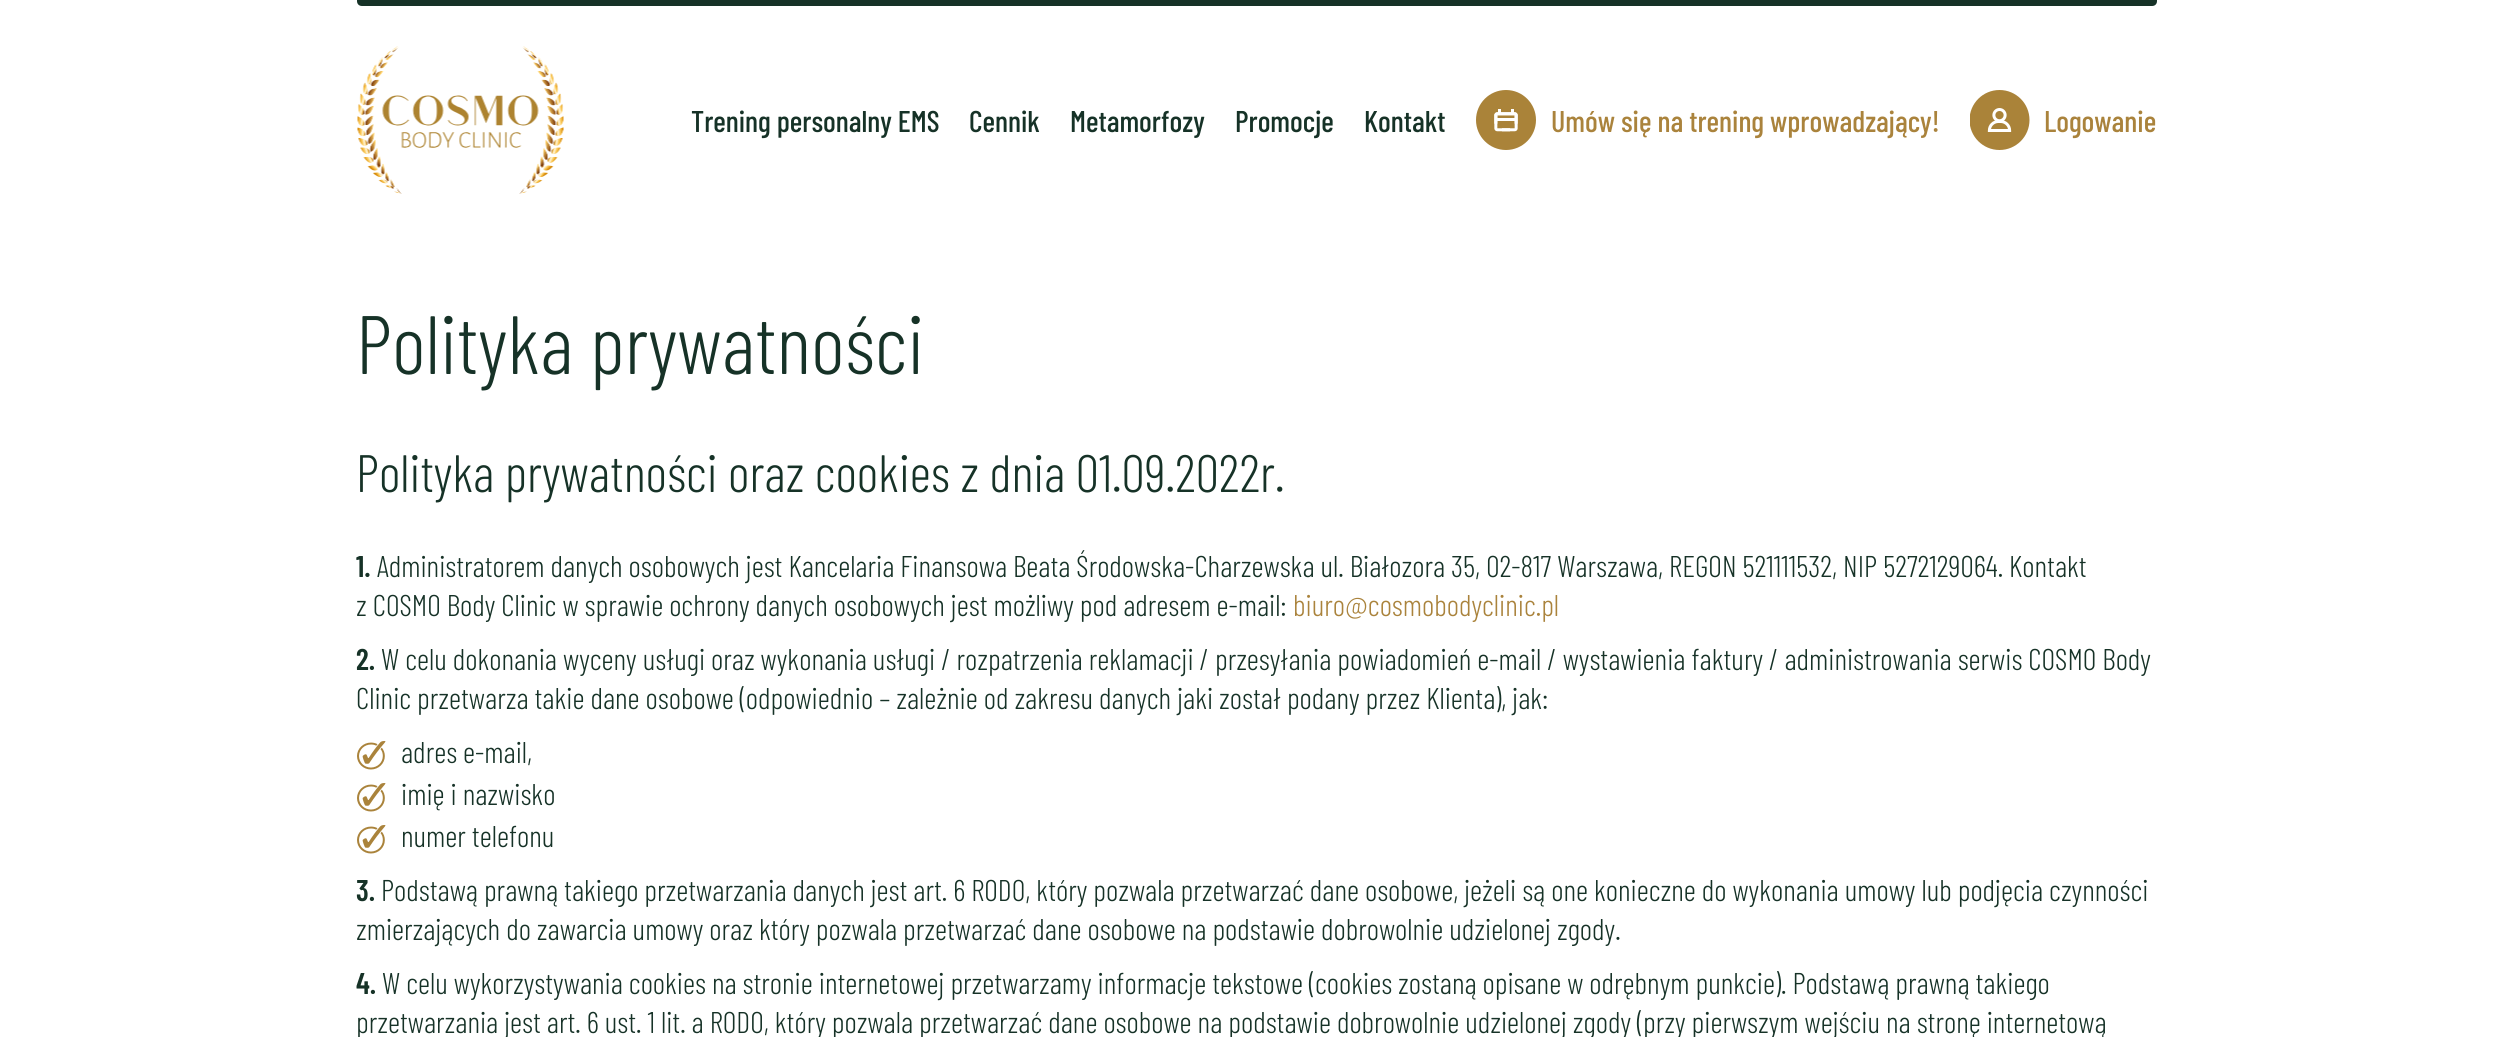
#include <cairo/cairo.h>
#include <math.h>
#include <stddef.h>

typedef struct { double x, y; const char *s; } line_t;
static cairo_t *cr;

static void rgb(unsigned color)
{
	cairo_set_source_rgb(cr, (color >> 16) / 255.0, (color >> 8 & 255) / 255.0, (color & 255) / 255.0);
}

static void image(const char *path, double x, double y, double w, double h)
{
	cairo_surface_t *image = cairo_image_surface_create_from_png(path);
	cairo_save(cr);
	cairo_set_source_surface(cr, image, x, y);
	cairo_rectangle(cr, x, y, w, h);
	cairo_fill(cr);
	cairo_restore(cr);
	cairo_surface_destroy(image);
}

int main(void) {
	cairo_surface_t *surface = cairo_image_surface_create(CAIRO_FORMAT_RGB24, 2512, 1037);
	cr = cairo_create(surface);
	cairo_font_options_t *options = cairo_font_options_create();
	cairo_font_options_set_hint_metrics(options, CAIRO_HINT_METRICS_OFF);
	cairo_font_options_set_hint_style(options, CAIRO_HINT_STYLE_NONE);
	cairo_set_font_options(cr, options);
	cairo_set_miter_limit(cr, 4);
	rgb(0xffffff);
	cairo_paint(cr);
	rgb(0x163227);
	cairo_new_path(cr);
	cairo_move_to(cr, 357, 0);
	cairo_line_to(cr, 2157, 0);
	cairo_line_to(cr, 2157, 1);
	cairo_curve_to(cr, 2157, 4, 2155, 6, 2152, 6);
	cairo_line_to(cr, 362, 6);
	cairo_curve_to(cr, 359, 6, 357, 4, 357, 1);
	cairo_close_path(cr);
	cairo_fill(cr);
	image("img/1.png", 357, 46, 207, 148);
	image("img/2.png", 1476, 90, 60, 60);
	image("img/3.png", 1970, 90, 60, 60);
	image("img/4.png", 357, 741, 29, 29);
	image("img/4.png", 357, 783, 29, 29);
	image("img/4.png", 357, 825, 29, 29);
	cairo_select_font_face(cr, "Barlow Condensed Medium", CAIRO_FONT_SLANT_NORMAL, CAIRO_FONT_WEIGHT_NORMAL);
	cairo_set_font_size(cr, 30);
	{
		static const line_t items[] = {
			{691, 132, "Trening personalny EMS"},
			{969, 132, "Cennik"},
			{1070, 132, "Metamorfozy"},
			{1235, 132, "Promocje"},
			{1364, 132, "Kontakt"},
		};
		for (size_t i = 0; i < sizeof items / sizeof *items; i++) {
			cairo_move_to(cr, items[i].x, items[i].y);
			cairo_show_text(cr, items[i].s);
		}
	}
	rgb(0xaa833c);
	cairo_move_to(cr, 1551, 132);
	cairo_show_text(cr, "Umów się na trening wprowadzający!");
	cairo_move_to(cr, 2044, 132);
	cairo_show_text(cr, "Logowanie");
	cairo_select_font_face(cr, "Barlow Condensed Light", CAIRO_FONT_SLANT_NORMAL, CAIRO_FONT_WEIGHT_NORMAL);
	cairo_set_font_size(cr, 82.5);
	rgb(0x163227);
	cairo_move_to(cr, 356, 374);
	cairo_show_text(cr, "Polityka prywatności");
	cairo_set_font_size(cr, 52.5);
	cairo_move_to(cr, 356, 492);
	cairo_show_text(cr, "Polityka prywatności oraz cookies z dnia 01.09.2022r.");
	cairo_select_font_face(cr, "Barlow Condensed SemiBold", CAIRO_FONT_SLANT_NORMAL, CAIRO_FONT_WEIGHT_NORMAL);
	cairo_set_font_size(cr, 30);
	cairo_move_to(cr, 356, 577);
	cairo_show_text(cr, "1.");
	cairo_select_font_face(cr, "Barlow Condensed Light", CAIRO_FONT_SLANT_NORMAL, CAIRO_FONT_WEIGHT_NORMAL);
	cairo_move_to(cr, 377, 577);
	cairo_show_text(cr, "Administratorem danych osobowych jest Kancelaria Finansowa Beata Środowska-Charzewska ul. Białozora 35, 02-817 Warszawa, REGON 521111532, NIP 5272129064. Kontakt");
	cairo_move_to(cr, 356, 616);
	cairo_show_text(cr, "z COSMO Body Clinic w sprawie ochrony danych osobowych jest możliwy pod adresem e-mail:");
	rgb(0xaa833c);
	cairo_move_to(cr, 1293, 616);
	cairo_show_text(cr, "biuro@cosmobodyclinic.pl");
	cairo_select_font_face(cr, "Barlow Condensed SemiBold", CAIRO_FONT_SLANT_NORMAL, CAIRO_FONT_WEIGHT_NORMAL);
	rgb(0x163227);
	cairo_move_to(cr, 356, 670);
	cairo_show_text(cr, "2.");
	cairo_select_font_face(cr, "Barlow Condensed Light", CAIRO_FONT_SLANT_NORMAL, CAIRO_FONT_WEIGHT_NORMAL);
	{
		static const line_t items[] = {
			{381, 670, "W celu dokonania wyceny usługi oraz wykonania usługi / rozpatrzenia reklamacji / przesyłania powiadomień e-mail / wystawienia faktury / administrowania serwis COSMO Body"},
			{356, 709, "Clinic przetwarza takie dane osobowe (odpowiednio – zależnie od zakresu danych jaki został podany przez Klienta), jak:"},
			{401, 763, "adres e-mail,"},
			{401, 805, "imię i nazwisko"},
			{401, 847, "numer telefonu"},
		};
		for (size_t i = 0; i < sizeof items / sizeof *items; i++) {
			cairo_move_to(cr, items[i].x, items[i].y);
			cairo_show_text(cr, items[i].s);
		}
	}
	cairo_select_font_face(cr, "Barlow Condensed SemiBold", CAIRO_FONT_SLANT_NORMAL, CAIRO_FONT_WEIGHT_NORMAL);
	cairo_move_to(cr, 356, 901);
	cairo_show_text(cr, "3.");
	cairo_select_font_face(cr, "Barlow Condensed Light", CAIRO_FONT_SLANT_NORMAL, CAIRO_FONT_WEIGHT_NORMAL);
	cairo_move_to(cr, 381, 901);
	cairo_show_text(cr, "Podstawą prawną takiego przetwarzania danych jest art. 6 RODO, który pozwala przetwarzać dane osobowe, jeżeli są one konieczne do wykonania umowy lub podjęcia czynności");
	cairo_move_to(cr, 356, 940);
	cairo_show_text(cr, "zmierzających do zawarcia umowy oraz który pozwala przetwarzać dane osobowe na podstawie dobrowolnie udzielonej zgody.");
	cairo_select_font_face(cr, "Barlow Condensed SemiBold", CAIRO_FONT_SLANT_NORMAL, CAIRO_FONT_WEIGHT_NORMAL);
	cairo_move_to(cr, 356, 994);
	cairo_show_text(cr, "4.");
	cairo_select_font_face(cr, "Barlow Condensed Light", CAIRO_FONT_SLANT_NORMAL, CAIRO_FONT_WEIGHT_NORMAL);
	cairo_move_to(cr, 382, 994);
	cairo_show_text(cr, "W celu wykorzystywania cookies na stronie internetowej przetwarzamy informacje tekstowe (cookies zostaną opisane w odrębnym punkcie). Podstawą prawną takiego");
	cairo_move_to(cr, 356, 1033);
	cairo_show_text(cr, "przetwarzania jest art. 6 ust. 1 lit. a RODO, który pozwala przetwarzać dane osobowe na podstawie dobrowolnie udzielonej zgody (przy pierwszym wejściu na stronę internetową");
	cairo_surface_write_to_png(surface, "page.png");
	cairo_font_options_destroy(options);
	cairo_destroy(cr);
	cairo_surface_destroy(surface);
	return 0;
}
